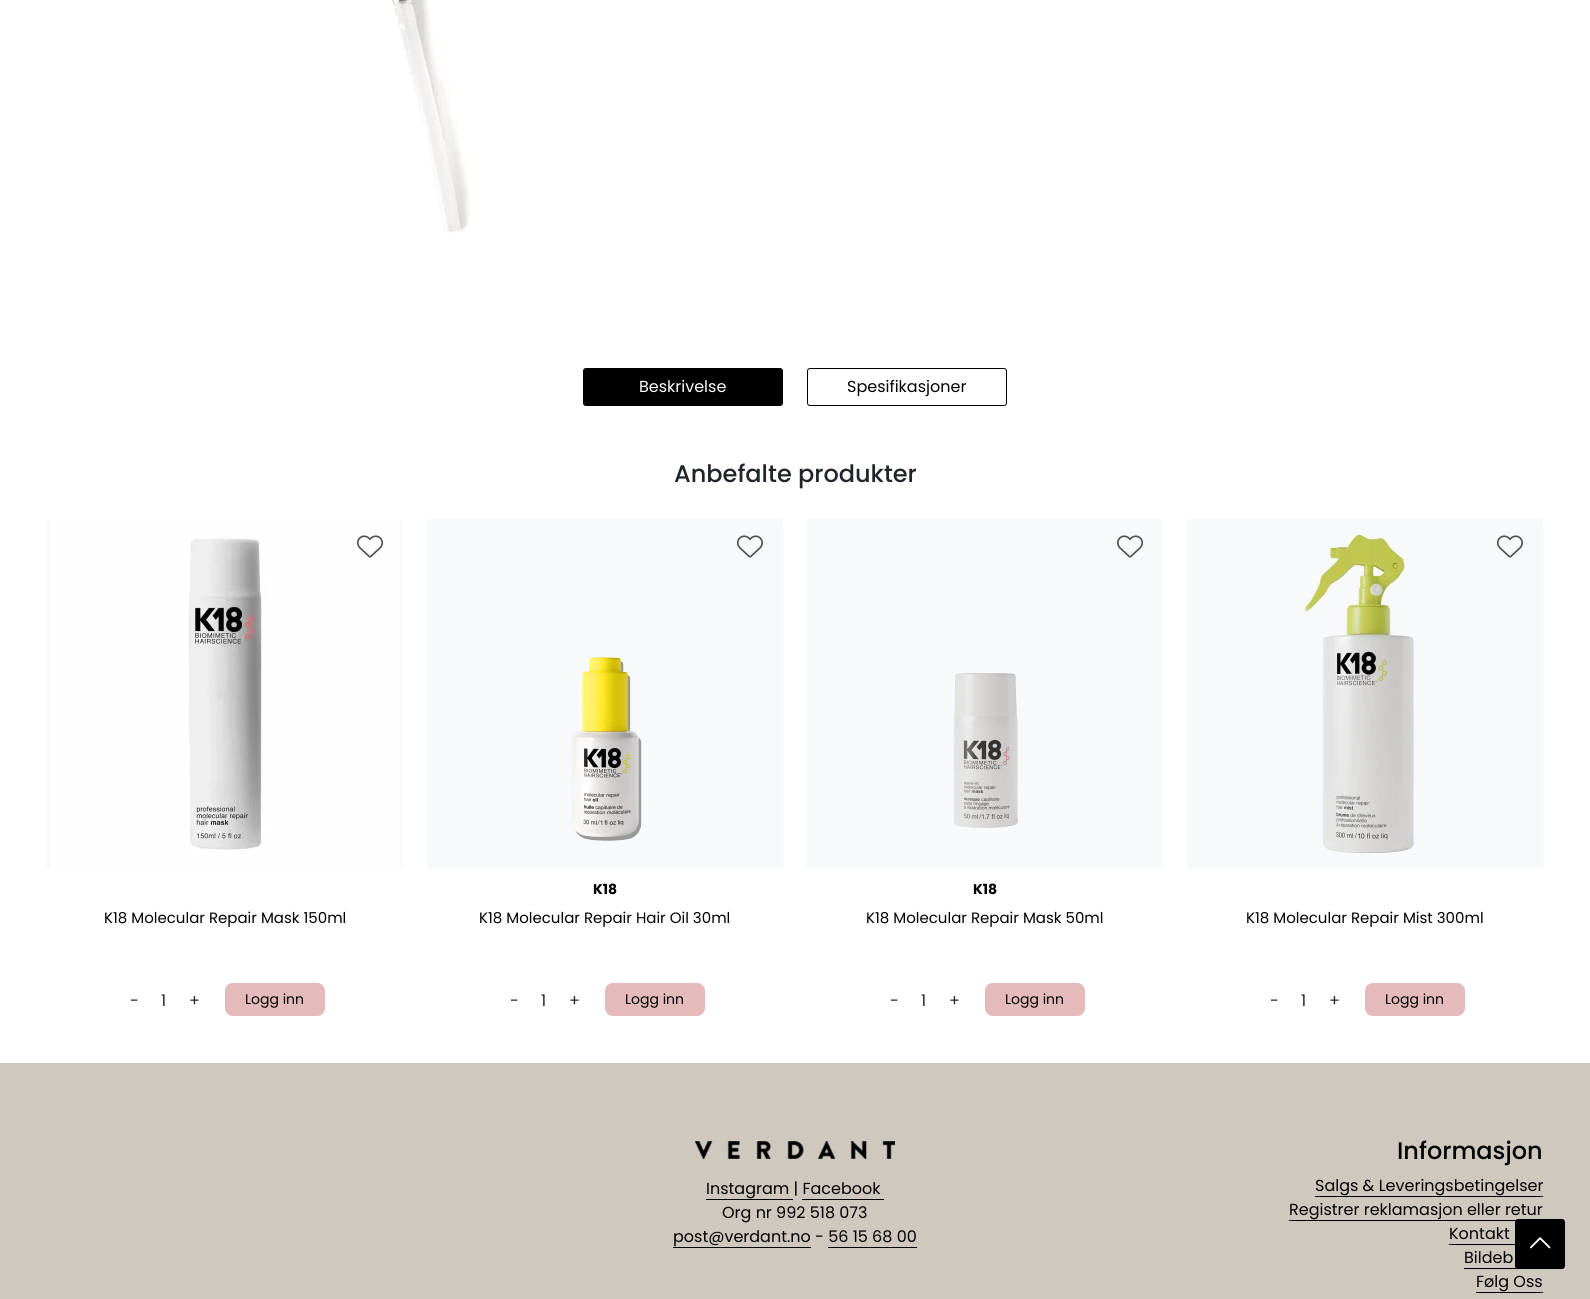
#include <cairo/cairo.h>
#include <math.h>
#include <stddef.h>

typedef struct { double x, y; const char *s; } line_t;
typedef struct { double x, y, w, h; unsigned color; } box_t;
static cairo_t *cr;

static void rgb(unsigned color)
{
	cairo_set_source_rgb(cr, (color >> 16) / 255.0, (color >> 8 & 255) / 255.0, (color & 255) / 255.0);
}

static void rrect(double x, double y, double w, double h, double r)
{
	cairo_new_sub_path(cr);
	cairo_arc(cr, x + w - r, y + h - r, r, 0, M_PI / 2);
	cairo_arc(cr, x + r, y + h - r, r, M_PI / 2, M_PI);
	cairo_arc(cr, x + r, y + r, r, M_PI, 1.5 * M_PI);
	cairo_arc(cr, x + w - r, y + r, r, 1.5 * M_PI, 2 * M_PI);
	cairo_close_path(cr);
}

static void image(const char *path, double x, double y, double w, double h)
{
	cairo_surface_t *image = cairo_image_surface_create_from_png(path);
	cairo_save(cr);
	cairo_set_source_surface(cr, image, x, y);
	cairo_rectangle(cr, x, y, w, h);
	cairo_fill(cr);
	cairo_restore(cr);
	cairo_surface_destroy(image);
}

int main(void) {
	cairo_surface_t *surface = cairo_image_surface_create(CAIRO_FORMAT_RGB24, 1590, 1299);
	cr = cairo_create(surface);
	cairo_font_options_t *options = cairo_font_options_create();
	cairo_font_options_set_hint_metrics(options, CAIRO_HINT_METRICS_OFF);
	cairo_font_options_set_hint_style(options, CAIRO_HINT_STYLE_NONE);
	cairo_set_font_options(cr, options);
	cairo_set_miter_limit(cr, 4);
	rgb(0xffffff);
	cairo_paint(cr);
	image("img/1.png", 392, 0, 78, 233);
	rgb(0x000000);
	rrect(583.5, 368.5, 199, 37, 2.5);
	cairo_fill_preserve(cr);
	cairo_set_line_width(cr, 1);
	cairo_stroke(cr);
	rrect(807.5, 368.5, 199, 37, 2.5);
	cairo_stroke(cr);
	rgb(0xf8f9fa);
	rrect(47, 519, 356, 350, 3);
	cairo_fill(cr);
	image("img/2.png", 50, 519, 350, 350);
	image("img/3.png", 357, 535, 26, 23);
	rgb(0xe4baba);
	rrect(225.5, 983.5, 99, 32, 7.5);
	cairo_fill_preserve(cr);
	cairo_stroke(cr);
	rgb(0xf8f9fa);
	rrect(427, 519, 356, 350, 3);
	cairo_fill(cr);
	image("img/4.png", 571, 657, 71, 185);
	image("img/5.png", 737, 535, 26, 23);
	rgb(0xe4baba);
	rrect(605.5, 983.5, 99, 32, 7.5);
	cairo_fill_preserve(cr);
	cairo_stroke(cr);
	rgb(0xf8f9fa);
	rrect(807, 519, 356, 350, 3);
	cairo_fill(cr);
	image("img/6.png", 953, 673, 65, 155);
	image("img/5.png", 1117, 535, 26, 23);
	rgb(0xe4baba);
	rrect(985.5, 983.5, 99, 32, 7.5);
	cairo_fill_preserve(cr);
	cairo_stroke(cr);
	rgb(0xf8f9fa);
	rrect(1187, 519, 356, 350, 3);
	cairo_fill(cr);
	image("img/7.png", 1305, 534, 109, 319);
	image("img/5.png", 1497, 535, 26, 23);
	rgb(0xe4baba);
	rrect(1365.5, 983.5, 99, 32, 7.5);
	cairo_fill_preserve(cr);
	cairo_stroke(cr);
	{
		static const box_t items[] = {
			{0, 1063, 1590, 236, 0xcfc8be},
			{1289, 1220, 227, 1, 0x000000},
			{1464, 1268, 54, 1, 0x000000},
		};
		for (size_t i = 0; i < sizeof items / sizeof *items; i++) {
			rgb(items[i].color);
			cairo_rectangle(cr, items[i].x, items[i].y, items[i].w, items[i].h);
			cairo_fill(cr);
		}
	}
	rrect(1515, 1219, 50, 50, 3);
	cairo_fill(cr);
	image("img/8.png", 1529, 1237, 22, 12);
	image("img/9.png", 695, 1141, 200, 18);
	{
		static const box_t items[] = {
			{706, 1199, 87, 1, 0x000000},
			{802, 1199, 82, 1, 0x000000},
			{673, 1247, 138, 1, 0x000000},
			{828, 1247, 89, 1, 0x000000},
			{1315, 1196, 228, 1, 0x000000},
			{1449, 1244, 66, 1, 0x000000},
			{1476, 1292, 67, 1, 0x000000},
		};
		for (size_t i = 0; i < sizeof items / sizeof *items; i++) {
			rgb(items[i].color);
			cairo_rectangle(cr, items[i].x, items[i].y, items[i].w, items[i].h);
			cairo_fill(cr);
		}
	}
	cairo_select_font_face(cr, "Poppins", CAIRO_FONT_SLANT_NORMAL, CAIRO_FONT_WEIGHT_NORMAL);
	cairo_set_font_size(cr, 16);
	rgb(0xffffff);
	cairo_move_to(cr, 639, 392);
	cairo_show_text(cr, "Beskrivelse");
	rgb(0x000000);
	cairo_move_to(cr, 847, 392);
	cairo_show_text(cr, "Spesifikasjoner");
	cairo_select_font_face(cr, "Poppins Medium", CAIRO_FONT_SLANT_NORMAL, CAIRO_FONT_WEIGHT_NORMAL);
	cairo_set_font_size(cr, 24);
	rgb(0x212529);
	cairo_move_to(cr, 674, 482);
	cairo_show_text(cr, "Anbefalte produkter");
	cairo_select_font_face(cr, "Poppins", CAIRO_FONT_SLANT_NORMAL, CAIRO_FONT_WEIGHT_NORMAL);
	cairo_set_font_size(cr, 15);
	rgb(0x000000);
	cairo_move_to(cr, 104, 923);
	cairo_show_text(cr, "K18 Molecular Repair Mask 150ml");
	cairo_set_font_size(cr, 16);
	rgb(0x212529);
	{
		static const line_t items[] = {
			{130, 1006, "-"},
			{161, 1006, "1"},
			{189, 1006, "+"},
		};
		for (size_t i = 0; i < sizeof items / sizeof *items; i++) {
			cairo_move_to(cr, items[i].x, items[i].y);
			cairo_show_text(cr, items[i].s);
		}
	}
	cairo_set_font_size(cr, 14);
	rgb(0x000000);
	cairo_move_to(cr, 245, 1004);
	cairo_show_text(cr, "Logg inn");
	cairo_select_font_face(cr, "Poppins", CAIRO_FONT_SLANT_NORMAL, CAIRO_FONT_WEIGHT_BOLD);
	cairo_move_to(cr, 593, 894);
	cairo_show_text(cr, "K18");
	cairo_select_font_face(cr, "Poppins", CAIRO_FONT_SLANT_NORMAL, CAIRO_FONT_WEIGHT_NORMAL);
	cairo_set_font_size(cr, 15);
	cairo_move_to(cr, 479, 923);
	cairo_show_text(cr, "K18 Molecular Repair Hair Oil 30ml");
	cairo_set_font_size(cr, 16);
	rgb(0x212529);
	{
		static const line_t items[] = {
			{510, 1006, "-"},
			{541, 1006, "1"},
			{569, 1006, "+"},
		};
		for (size_t i = 0; i < sizeof items / sizeof *items; i++) {
			cairo_move_to(cr, items[i].x, items[i].y);
			cairo_show_text(cr, items[i].s);
		}
	}
	cairo_set_font_size(cr, 14);
	rgb(0x000000);
	cairo_move_to(cr, 625, 1004);
	cairo_show_text(cr, "Logg inn");
	cairo_select_font_face(cr, "Poppins", CAIRO_FONT_SLANT_NORMAL, CAIRO_FONT_WEIGHT_BOLD);
	cairo_move_to(cr, 973, 894);
	cairo_show_text(cr, "K18");
	cairo_select_font_face(cr, "Poppins", CAIRO_FONT_SLANT_NORMAL, CAIRO_FONT_WEIGHT_NORMAL);
	cairo_set_font_size(cr, 15);
	cairo_move_to(cr, 866, 923);
	cairo_show_text(cr, "K18 Molecular Repair Mask 50ml");
	cairo_set_font_size(cr, 16);
	rgb(0x212529);
	{
		static const line_t items[] = {
			{890, 1006, "-"},
			{921, 1006, "1"},
			{949, 1006, "+"},
		};
		for (size_t i = 0; i < sizeof items / sizeof *items; i++) {
			cairo_move_to(cr, items[i].x, items[i].y);
			cairo_show_text(cr, items[i].s);
		}
	}
	cairo_set_font_size(cr, 14);
	rgb(0x000000);
	cairo_move_to(cr, 1005, 1004);
	cairo_show_text(cr, "Logg inn");
	cairo_set_font_size(cr, 15);
	cairo_move_to(cr, 1246, 923);
	cairo_show_text(cr, "K18 Molecular Repair Mist 300ml");
	cairo_set_font_size(cr, 16);
	rgb(0x212529);
	{
		static const line_t items[] = {
			{1270, 1006, "-"},
			{1301, 1006, "1"},
			{1329, 1006, "+"},
		};
		for (size_t i = 0; i < sizeof items / sizeof *items; i++) {
			cairo_move_to(cr, items[i].x, items[i].y);
			cairo_show_text(cr, items[i].s);
		}
	}
	cairo_set_font_size(cr, 14);
	rgb(0x000000);
	cairo_move_to(cr, 1385, 1004);
	cairo_show_text(cr, "Logg inn");
	cairo_set_font_size(cr, 16);
	{
		static const line_t items[] = {
			{706, 1194, "Instagram | Facebook"},
			{722, 1218, "Org nr 992 518 073"},
			{673, 1242, "post@verdant.no - 56 15 68 00"},
		};
		for (size_t i = 0; i < sizeof items / sizeof *items; i++) {
			cairo_move_to(cr, items[i].x, items[i].y);
			cairo_show_text(cr, items[i].s);
		}
	}
	cairo_select_font_face(cr, "Poppins Medium", CAIRO_FONT_SLANT_NORMAL, CAIRO_FONT_WEIGHT_NORMAL);
	cairo_set_font_size(cr, 24);
	cairo_move_to(cr, 1397, 1159);
	cairo_show_text(cr, "Informasjon");
	cairo_select_font_face(cr, "Poppins", CAIRO_FONT_SLANT_NORMAL, CAIRO_FONT_WEIGHT_NORMAL);
	cairo_set_font_size(cr, 16);
	{
		static const line_t items[] = {
			{1315, 1191, "Salgs & Leveringsbetingelser"},
			{1289, 1215, "Registrer reklamasjon eller retur"},
			{1449, 1239, "Kontakt"},
			{1464, 1263, "Bildeb"},
			{1476, 1287, "Følg Oss"},
		};
		for (size_t i = 0; i < sizeof items / sizeof *items; i++) {
			cairo_move_to(cr, items[i].x, items[i].y);
			cairo_show_text(cr, items[i].s);
		}
	}
	cairo_surface_write_to_png(surface, "page.png");
	cairo_font_options_destroy(options);
	cairo_destroy(cr);
	cairo_surface_destroy(surface);
	return 0;
}
